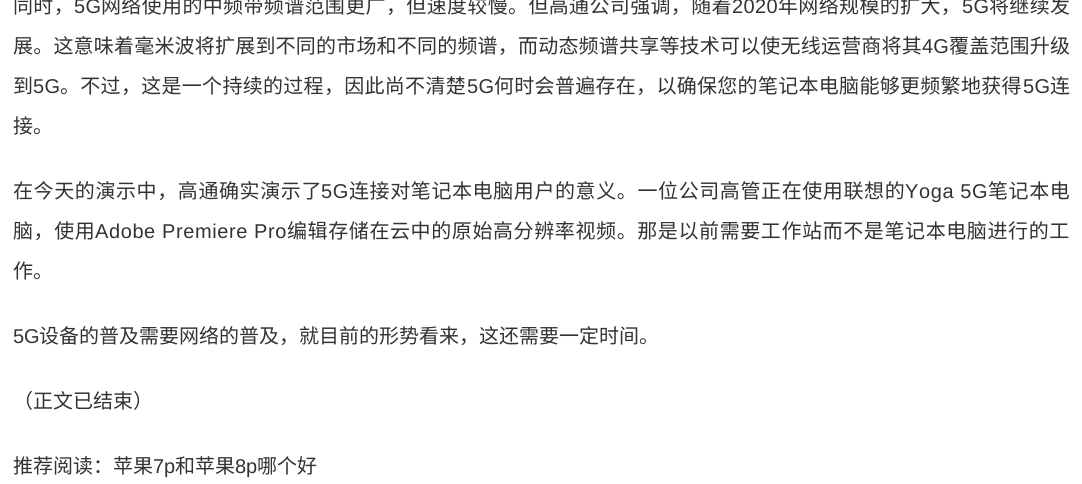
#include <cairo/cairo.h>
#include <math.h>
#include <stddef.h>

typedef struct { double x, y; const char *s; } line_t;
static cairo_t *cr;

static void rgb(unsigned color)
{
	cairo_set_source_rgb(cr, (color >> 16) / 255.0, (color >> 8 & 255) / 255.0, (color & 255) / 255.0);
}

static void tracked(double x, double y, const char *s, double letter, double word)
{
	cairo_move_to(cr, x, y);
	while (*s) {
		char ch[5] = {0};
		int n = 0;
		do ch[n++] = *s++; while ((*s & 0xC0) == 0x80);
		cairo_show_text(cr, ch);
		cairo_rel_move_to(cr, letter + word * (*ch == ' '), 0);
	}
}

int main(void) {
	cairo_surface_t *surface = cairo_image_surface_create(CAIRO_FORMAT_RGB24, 1082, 484);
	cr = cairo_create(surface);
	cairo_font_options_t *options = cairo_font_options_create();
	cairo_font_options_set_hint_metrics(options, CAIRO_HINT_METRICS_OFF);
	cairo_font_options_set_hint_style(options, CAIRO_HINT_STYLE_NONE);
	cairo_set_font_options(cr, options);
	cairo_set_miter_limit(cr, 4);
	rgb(0xffffff);
	cairo_paint(cr);
	cairo_select_font_face(cr, "Noto Sans CJK SC", CAIRO_FONT_SLANT_NORMAL, CAIRO_FONT_WEIGHT_NORMAL);
	cairo_set_font_size(cr, 20);
	rgb(0x333333);
	tracked(13, 13, "同时，", 0.35, 0);
	cairo_select_font_face(cr, "Liberation Sans", CAIRO_FONT_SLANT_NORMAL, CAIRO_FONT_WEIGHT_NORMAL);
	tracked(74, 13, "5G", 0.35, 0);
	cairo_select_font_face(cr, "Noto Sans CJK SC", CAIRO_FONT_SLANT_NORMAL, CAIRO_FONT_WEIGHT_NORMAL);
	tracked(101, 13, "网络使用的中频带频谱范围更广，但速度较慢。但高通公司强调，随着", 0.35, 0);
	cairo_select_font_face(cr, "Liberation Sans", CAIRO_FONT_SLANT_NORMAL, CAIRO_FONT_WEIGHT_NORMAL);
	tracked(732, 13, "2020", 0.35, 0);
	cairo_select_font_face(cr, "Noto Sans CJK SC", CAIRO_FONT_SLANT_NORMAL, CAIRO_FONT_WEIGHT_NORMAL);
	tracked(778, 13, "年网络规模的扩大，", 0.35, 0);
	cairo_select_font_face(cr, "Liberation Sans", CAIRO_FONT_SLANT_NORMAL, CAIRO_FONT_WEIGHT_NORMAL);
	tracked(962, 13, "5G", 0.35, 0);
	cairo_select_font_face(cr, "Noto Sans CJK SC", CAIRO_FONT_SLANT_NORMAL, CAIRO_FONT_WEIGHT_NORMAL);
	tracked(989, 13, "将继续发", 0.35, 0);
	tracked(13, 53, "展。这意味着毫米波将扩展到不同的市场和不同的频谱，而动态频谱共享等技术可以使无线运营商将其", 0.2, 0);
	cairo_select_font_face(cr, "Liberation Sans", CAIRO_FONT_SLANT_NORMAL, CAIRO_FONT_WEIGHT_NORMAL);
	tracked(922, 53, "4G", 0.2, 0);
	cairo_select_font_face(cr, "Noto Sans CJK SC", CAIRO_FONT_SLANT_NORMAL, CAIRO_FONT_WEIGHT_NORMAL);
	tracked(949, 53, "覆盖范围升级", 0.2, 0);
	tracked(13, 93, "到", 0.3, 0);
	cairo_select_font_face(cr, "Liberation Sans", CAIRO_FONT_SLANT_NORMAL, CAIRO_FONT_WEIGHT_NORMAL);
	tracked(33, 93, "5G", 0.3, 0);
	cairo_select_font_face(cr, "Noto Sans CJK SC", CAIRO_FONT_SLANT_NORMAL, CAIRO_FONT_WEIGHT_NORMAL);
	tracked(60, 93, "。不过，这是一个持续的过程，因此尚不清楚", 0.3, 0);
	cairo_select_font_face(cr, "Liberation Sans", CAIRO_FONT_SLANT_NORMAL, CAIRO_FONT_WEIGHT_NORMAL);
	tracked(467, 93, "5G", 0.3, 0);
	cairo_select_font_face(cr, "Noto Sans CJK SC", CAIRO_FONT_SLANT_NORMAL, CAIRO_FONT_WEIGHT_NORMAL);
	tracked(494, 93, "何时会普遍存在，以确保您的笔记本电脑能够更频繁地获得", 0.3, 0);
	cairo_select_font_face(cr, "Liberation Sans", CAIRO_FONT_SLANT_NORMAL, CAIRO_FONT_WEIGHT_NORMAL);
	tracked(1023, 93, "5G", 0.3, 0);
	cairo_select_font_face(cr, "Noto Sans CJK SC", CAIRO_FONT_SLANT_NORMAL, CAIRO_FONT_WEIGHT_NORMAL);
	tracked(1050, 93, "连", 0.3, 0);
	cairo_move_to(cr, 13, 133);
	cairo_show_text(cr, "接。");
	tracked(13, 198, "在今天的演示中，高通确实演示了", 0.6, 0);
	cairo_select_font_face(cr, "Liberation Sans", CAIRO_FONT_SLANT_NORMAL, CAIRO_FONT_WEIGHT_NORMAL);
	tracked(321, 198, "5G", 0.6, 0);
	cairo_select_font_face(cr, "Noto Sans CJK SC", CAIRO_FONT_SLANT_NORMAL, CAIRO_FONT_WEIGHT_NORMAL);
	tracked(349, 198, "连接对笔记本电脑用户的意义。一位公司高管正在使用联想的", 0.6, 0);
	cairo_select_font_face(cr, "Liberation Sans", CAIRO_FONT_SLANT_NORMAL, CAIRO_FONT_WEIGHT_NORMAL);
	tracked(905, 198, "Yoga 5G", 0.6, 0);
	cairo_select_font_face(cr, "Noto Sans CJK SC", CAIRO_FONT_SLANT_NORMAL, CAIRO_FONT_WEIGHT_NORMAL);
	tracked(988, 198, "笔记本电", 0.6, 0);
	tracked(13, 238, "脑，使用", 0.6, 0);
	cairo_select_font_face(cr, "Liberation Sans", CAIRO_FONT_SLANT_NORMAL, CAIRO_FONT_WEIGHT_NORMAL);
	tracked(95, 238, "Adobe Premiere Pro", 0.6, 0);
	cairo_select_font_face(cr, "Noto Sans CJK SC", CAIRO_FONT_SLANT_NORMAL, CAIRO_FONT_WEIGHT_NORMAL);
	tracked(287, 238, "编辑存储在云中的原始高分辨率视频。那是以前需要工作站而不是笔记本电脑进行的工", 0.6, 0);
	cairo_move_to(cr, 13, 278);
	cairo_show_text(cr, "作。");
	cairo_select_font_face(cr, "Liberation Sans", CAIRO_FONT_SLANT_NORMAL, CAIRO_FONT_WEIGHT_NORMAL);
	cairo_move_to(cr, 13, 343);
	cairo_show_text(cr, "5G");
	cairo_select_font_face(cr, "Noto Sans CJK SC", CAIRO_FONT_SLANT_NORMAL, CAIRO_FONT_WEIGHT_NORMAL);
	{
		static const line_t items[] = {
			{39, 343, "设备的普及需要网络的普及，就目前的形势看来，这还需要一定时间。"},
			{13, 408, "（正文已结束）"},
			{13, 473, "推荐阅读：苹果"},
		};
		for (size_t i = 0; i < sizeof items / sizeof *items; i++) {
			cairo_move_to(cr, items[i].x, items[i].y);
			cairo_show_text(cr, items[i].s);
		}
	}
	cairo_select_font_face(cr, "Liberation Sans", CAIRO_FONT_SLANT_NORMAL, CAIRO_FONT_WEIGHT_NORMAL);
	cairo_move_to(cr, 153, 473);
	cairo_show_text(cr, "7p");
	cairo_select_font_face(cr, "Noto Sans CJK SC", CAIRO_FONT_SLANT_NORMAL, CAIRO_FONT_WEIGHT_NORMAL);
	cairo_move_to(cr, 175, 473);
	cairo_show_text(cr, "和苹果");
	cairo_select_font_face(cr, "Liberation Sans", CAIRO_FONT_SLANT_NORMAL, CAIRO_FONT_WEIGHT_NORMAL);
	cairo_move_to(cr, 235, 473);
	cairo_show_text(cr, "8p");
	cairo_select_font_face(cr, "Noto Sans CJK SC", CAIRO_FONT_SLANT_NORMAL, CAIRO_FONT_WEIGHT_NORMAL);
	cairo_move_to(cr, 257, 473);
	cairo_show_text(cr, "哪个好");
	cairo_surface_write_to_png(surface, "page.png");
	cairo_font_options_destroy(options);
	cairo_destroy(cr);
	cairo_surface_destroy(surface);
	return 0;
}
